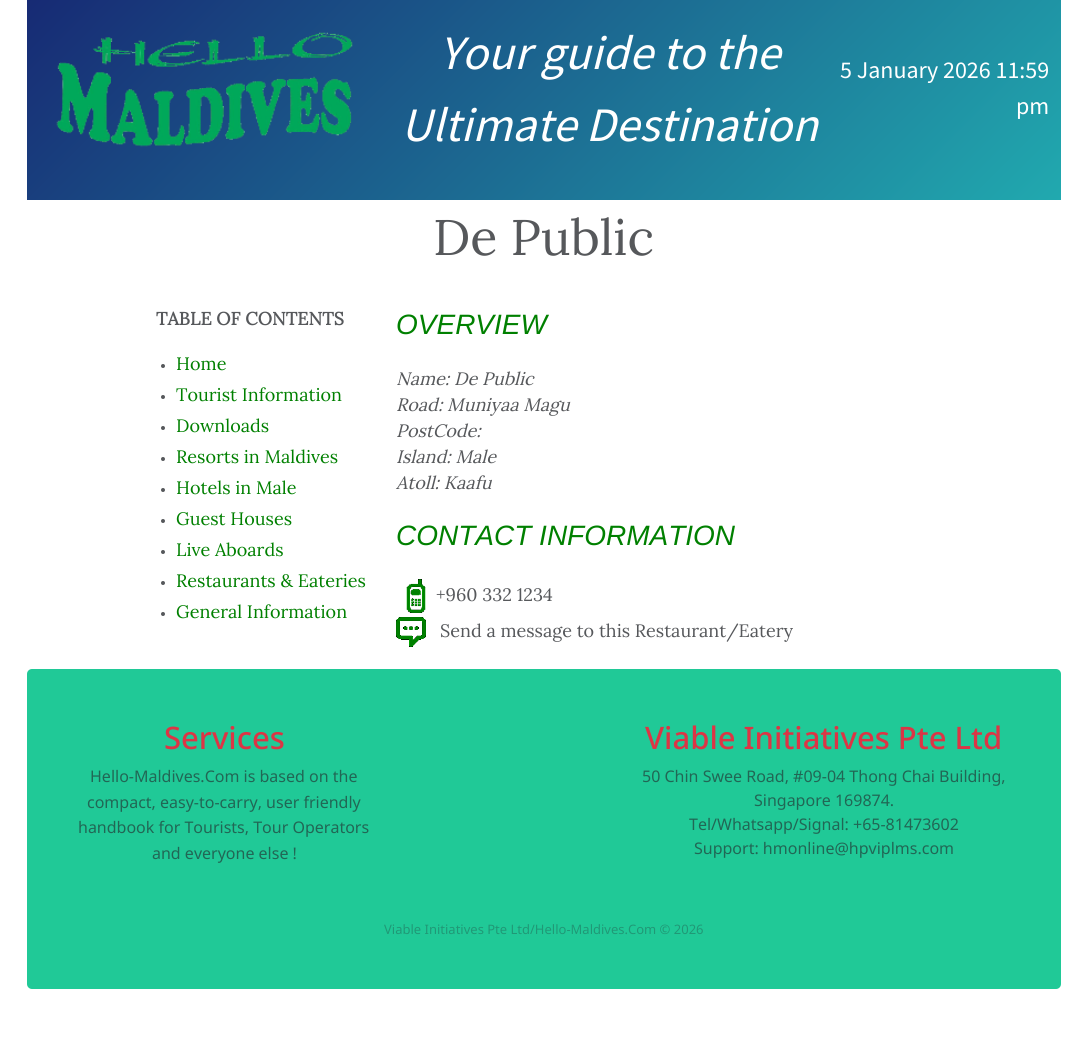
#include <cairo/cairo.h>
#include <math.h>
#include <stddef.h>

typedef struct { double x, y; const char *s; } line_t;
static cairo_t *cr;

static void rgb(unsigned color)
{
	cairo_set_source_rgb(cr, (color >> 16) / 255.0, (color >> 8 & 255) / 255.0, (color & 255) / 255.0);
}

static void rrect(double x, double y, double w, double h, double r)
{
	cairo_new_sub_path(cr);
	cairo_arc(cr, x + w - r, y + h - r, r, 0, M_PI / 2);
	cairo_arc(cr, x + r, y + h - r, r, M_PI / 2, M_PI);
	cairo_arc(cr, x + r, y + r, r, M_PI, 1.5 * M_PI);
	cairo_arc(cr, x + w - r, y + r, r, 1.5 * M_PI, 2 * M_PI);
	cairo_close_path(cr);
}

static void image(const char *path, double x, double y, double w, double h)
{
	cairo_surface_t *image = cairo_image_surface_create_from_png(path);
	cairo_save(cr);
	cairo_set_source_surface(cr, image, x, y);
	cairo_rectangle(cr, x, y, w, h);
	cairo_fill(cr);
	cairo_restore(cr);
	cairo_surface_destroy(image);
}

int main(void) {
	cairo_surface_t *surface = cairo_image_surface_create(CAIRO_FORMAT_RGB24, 1088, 1060);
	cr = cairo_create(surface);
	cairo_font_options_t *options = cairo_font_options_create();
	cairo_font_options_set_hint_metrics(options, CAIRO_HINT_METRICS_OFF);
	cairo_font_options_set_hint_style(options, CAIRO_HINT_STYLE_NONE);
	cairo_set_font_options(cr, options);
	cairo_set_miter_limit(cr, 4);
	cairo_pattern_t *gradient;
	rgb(0xffffff);
	cairo_paint(cr);
	gradient = cairo_pattern_create_linear(235, -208, 853, 409);
	cairo_pattern_add_color_stop_rgba(gradient, 0, 0.09, 0.165, 0.455, 1);
	cairo_pattern_add_color_stop_rgba(gradient, 1, 0.129, 0.663, 0.686, 1);
	cairo_set_source(cr, gradient);
	cairo_pattern_destroy(gradient);
	cairo_rectangle(cr, 27, 0, 1034, 200);
	cairo_fill(cr);
	image("img/1.png", 56, 32, 297, 115);
	rgb(0x56585b);
	cairo_arc(cr, 163, 366, 2, 0, 2 * M_PI);
	cairo_fill(cr);
	cairo_arc(cr, 163, 397, 2, 0, 2 * M_PI);
	cairo_fill(cr);
	cairo_arc(cr, 163, 428, 2, 0, 2 * M_PI);
	cairo_fill(cr);
	cairo_arc(cr, 163, 459, 2, 0, 2 * M_PI);
	cairo_fill(cr);
	cairo_arc(cr, 163, 490, 2, 0, 2 * M_PI);
	cairo_fill(cr);
	cairo_arc(cr, 163, 521, 2, 0, 2 * M_PI);
	cairo_fill(cr);
	cairo_arc(cr, 163, 552, 2, 0, 2 * M_PI);
	cairo_fill(cr);
	cairo_arc(cr, 163, 583, 2, 0, 2 * M_PI);
	cairo_fill(cr);
	cairo_arc(cr, 163, 614, 2, 0, 2 * M_PI);
	cairo_fill(cr);
	image("img/2.png", 406, 579, 20, 34);
	image("img/3.png", 396, 617, 30, 30);
	rgb(0x20c997);
	rrect(27, 669, 1034, 320, 5);
	cairo_fill(cr);
	cairo_select_font_face(cr, "Source Sans Pro", CAIRO_FONT_SLANT_ITALIC, CAIRO_FONT_WEIGHT_NORMAL);
	cairo_set_font_size(cr, 48);
	rgb(0xffffff);
	cairo_move_to(cr, 439, 69);
	cairo_show_text(cr, "Your guide to the");
	cairo_move_to(cr, 401, 141);
	cairo_show_text(cr, "Ultimate Destination");
	cairo_select_font_face(cr, "Source Sans Pro", CAIRO_FONT_SLANT_NORMAL, CAIRO_FONT_WEIGHT_NORMAL);
	cairo_set_font_size(cr, 24);
	cairo_move_to(cr, 840, 78);
	cairo_show_text(cr, "5 January 2026 11:59");
	cairo_move_to(cr, 1016, 114);
	cairo_show_text(cr, "pm");
	cairo_select_font_face(cr, "Lora", CAIRO_FONT_SLANT_NORMAL, CAIRO_FONT_WEIGHT_NORMAL);
	cairo_set_font_size(cr, 50);
	rgb(0x56585b);
	cairo_move_to(cr, 433, 255);
	cairo_show_text(cr, "De Public");
	cairo_select_font_face(cr, "Lora", CAIRO_FONT_SLANT_NORMAL, CAIRO_FONT_WEIGHT_BOLD);
	cairo_set_font_size(cr, 18);
	cairo_move_to(cr, 156, 325);
	cairo_show_text(cr, "TABLE OF CONTENTS");
	cairo_select_font_face(cr, "Lora", CAIRO_FONT_SLANT_NORMAL, CAIRO_FONT_WEIGHT_NORMAL);
	rgb(0x008000);
	{
		static const line_t items[] = {
			{176, 370, "Home"},
			{176, 401, "Tourist Information"},
			{176, 432, "Downloads"},
			{176, 463, "Resorts in Maldives"},
			{176, 494, "Hotels in Male"},
			{176, 525, "Guest Houses"},
			{176, 556, "Live Aboards"},
			{176, 587, "Restaurants & Eateries"},
			{176, 618, "General Information"},
		};
		for (size_t i = 0; i < sizeof items / sizeof *items; i++) {
			cairo_move_to(cr, items[i].x, items[i].y);
			cairo_show_text(cr, items[i].s);
		}
	}
	cairo_select_font_face(cr, "Liberation Sans", CAIRO_FONT_SLANT_ITALIC, CAIRO_FONT_WEIGHT_NORMAL);
	cairo_set_font_size(cr, 28);
	cairo_move_to(cr, 396, 334);
	cairo_show_text(cr, "OVERVIEW");
	cairo_select_font_face(cr, "Lora", CAIRO_FONT_SLANT_ITALIC, CAIRO_FONT_WEIGHT_NORMAL);
	cairo_set_font_size(cr, 18);
	rgb(0x56585b);
	{
		static const line_t items[] = {
			{396, 385, "Name: De Public"},
			{396, 411, "Road: Muniyaa Magu"},
			{396, 437, "PostCode:"},
			{396, 463, "Island: Male"},
			{396, 489, "Atoll: Kaafu"},
		};
		for (size_t i = 0; i < sizeof items / sizeof *items; i++) {
			cairo_move_to(cr, items[i].x, items[i].y);
			cairo_show_text(cr, items[i].s);
		}
	}
	cairo_select_font_face(cr, "Liberation Sans", CAIRO_FONT_SLANT_ITALIC, CAIRO_FONT_WEIGHT_NORMAL);
	cairo_set_font_size(cr, 28);
	rgb(0x008000);
	cairo_move_to(cr, 396, 545);
	cairo_show_text(cr, "CONTACT INFORMATION");
	cairo_select_font_face(cr, "Lora", CAIRO_FONT_SLANT_NORMAL, CAIRO_FONT_WEIGHT_NORMAL);
	cairo_set_font_size(cr, 18);
	rgb(0x56585b);
	cairo_move_to(cr, 436, 601);
	cairo_show_text(cr, "+960 332 1234");
	cairo_move_to(cr, 440, 637);
	cairo_show_text(cr, "Send a message to this Restaurant/Eatery");
	cairo_select_font_face(cr, "Noto Sans Medium", CAIRO_FONT_SLANT_NORMAL, CAIRO_FONT_WEIGHT_NORMAL);
	cairo_set_font_size(cr, 31);
	rgb(0xdc3545);
	cairo_move_to(cr, 164, 749);
	cairo_show_text(cr, "Services");
	cairo_select_font_face(cr, "Noto Sans", CAIRO_FONT_SLANT_NORMAL, CAIRO_FONT_WEIGHT_NORMAL);
	cairo_set_font_size(cr, 16);
	rgb(0x216755);
	{
		static const line_t items[] = {
			{90, 782, "Hello-Maldives.Com is based on the"},
			{87, 808, "compact, easy-to-carry, user friendly"},
			{78, 833, "handbook for Tourists, Tour Operators"},
			{152, 859, "and everyone else !"},
		};
		for (size_t i = 0; i < sizeof items / sizeof *items; i++) {
			cairo_move_to(cr, items[i].x, items[i].y);
			cairo_show_text(cr, items[i].s);
		}
	}
	cairo_select_font_face(cr, "Noto Sans Medium", CAIRO_FONT_SLANT_NORMAL, CAIRO_FONT_WEIGHT_NORMAL);
	cairo_set_font_size(cr, 31);
	rgb(0xdc3545);
	cairo_move_to(cr, 645, 749);
	cairo_show_text(cr, "Viable Initiatives Pte Ltd");
	cairo_select_font_face(cr, "Noto Sans", CAIRO_FONT_SLANT_NORMAL, CAIRO_FONT_WEIGHT_NORMAL);
	cairo_set_font_size(cr, 16);
	rgb(0x216755);
	{
		static const line_t items[] = {
			{642, 782, "50 Chin Swee Road, #09-04 Thong Chai Building,"},
			{754, 806, "Singapore 169874."},
			{689, 830, "Tel/Whatsapp/Signal: +65-81473602"},
			{694, 854, "Support: hmonline@hpviplms.com"},
		};
		for (size_t i = 0; i < sizeof items / sizeof *items; i++) {
			cairo_move_to(cr, items[i].x, items[i].y);
			cairo_show_text(cr, items[i].s);
		}
	}
	cairo_set_font_size(cr, 13);
	rgb(0x209876);
	cairo_move_to(cr, 384, 934);
	cairo_show_text(cr, "Viable Initiatives Pte Ltd/Hello-Maldives.Com © 2026");
	cairo_surface_write_to_png(surface, "page.png");
	cairo_font_options_destroy(options);
	cairo_destroy(cr);
	cairo_surface_destroy(surface);
	return 0;
}
